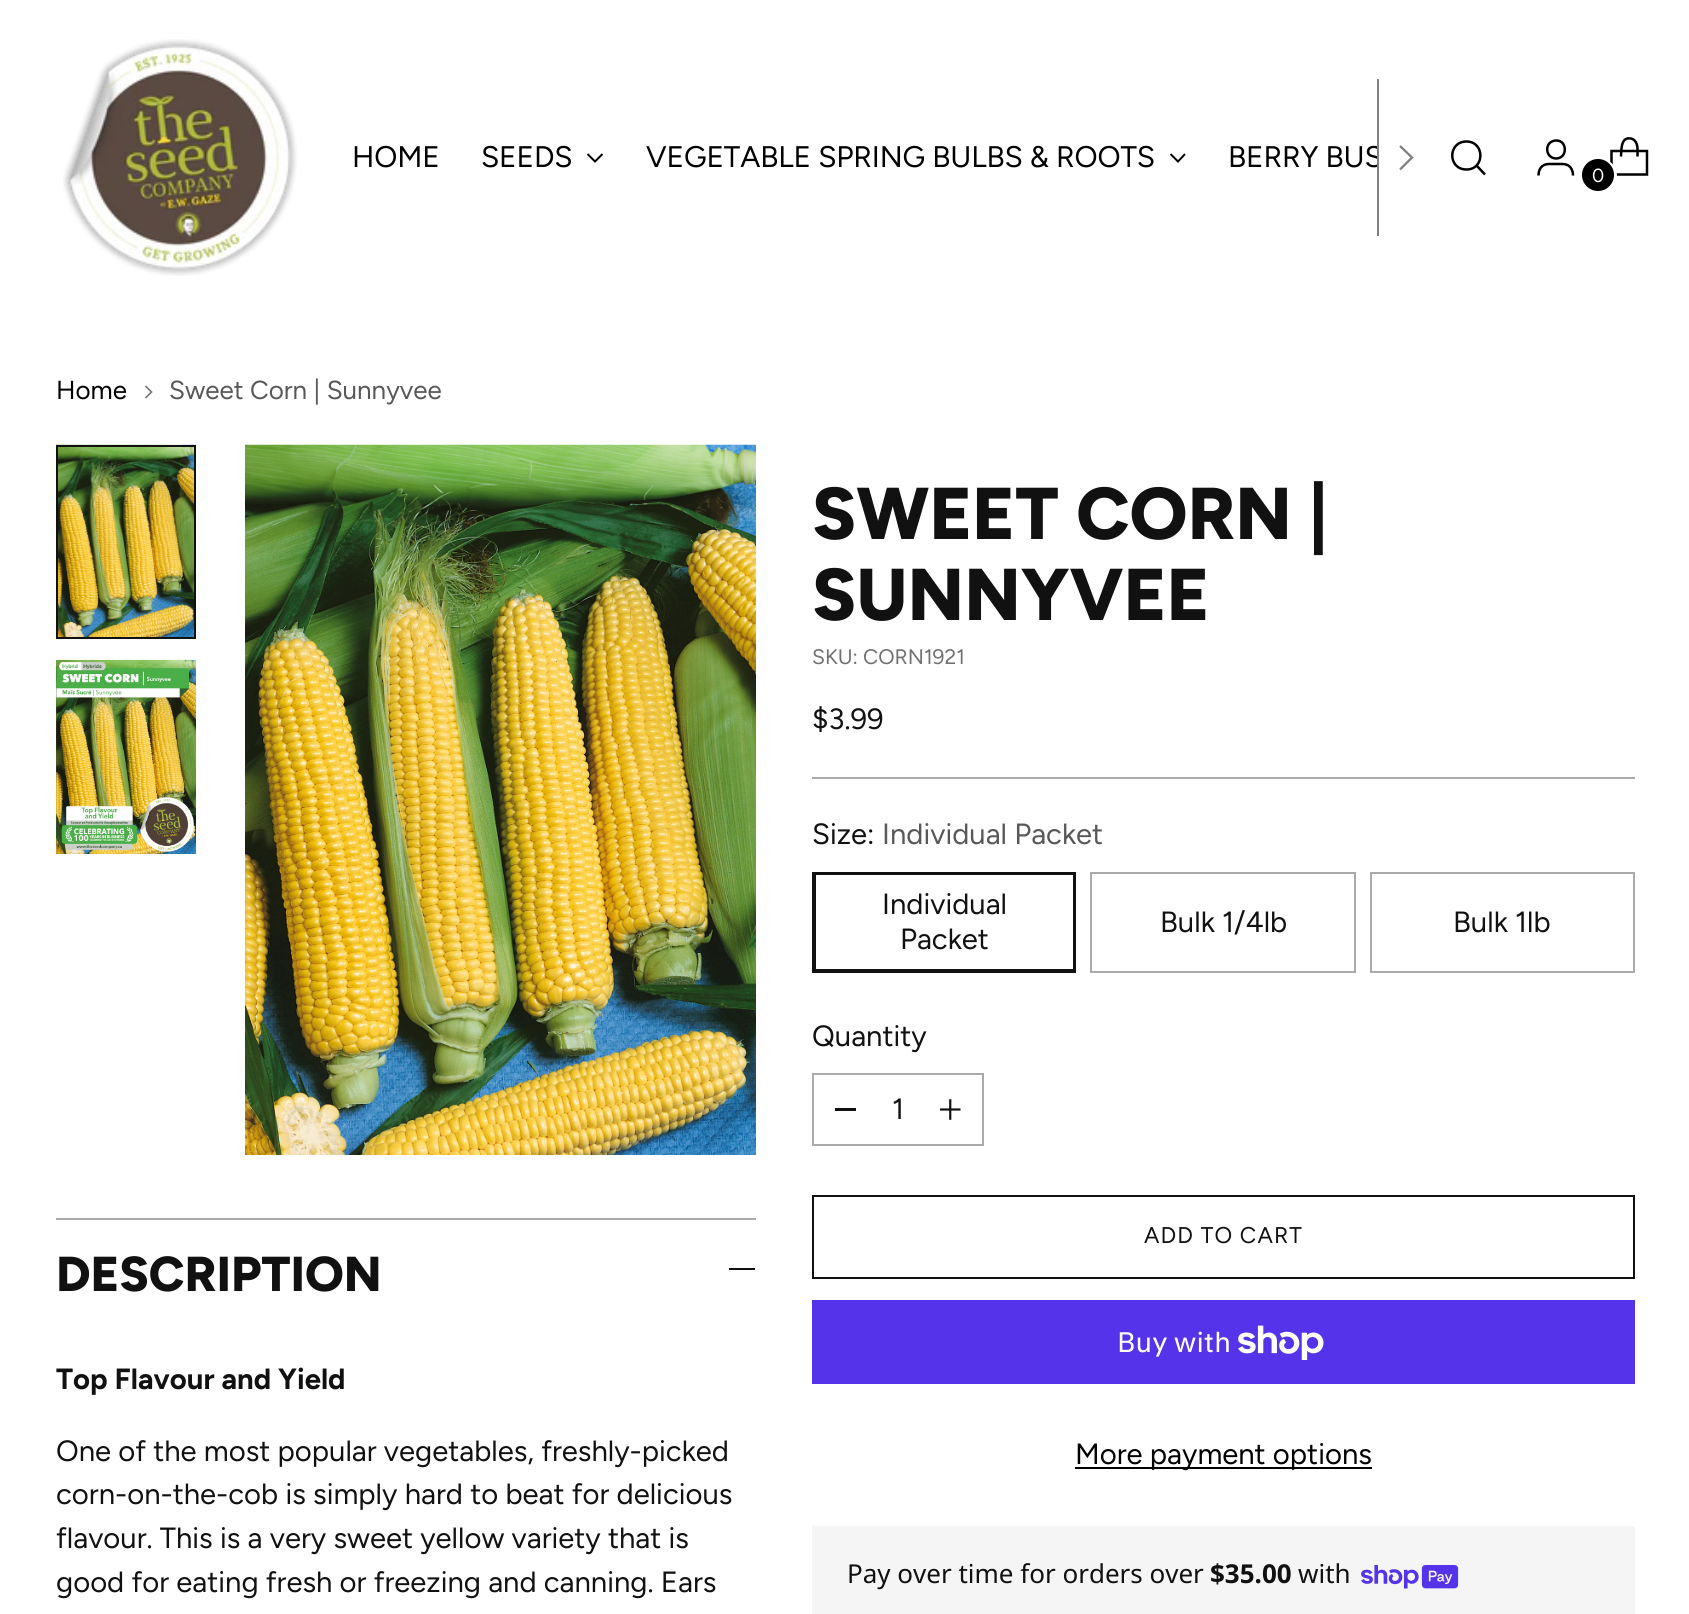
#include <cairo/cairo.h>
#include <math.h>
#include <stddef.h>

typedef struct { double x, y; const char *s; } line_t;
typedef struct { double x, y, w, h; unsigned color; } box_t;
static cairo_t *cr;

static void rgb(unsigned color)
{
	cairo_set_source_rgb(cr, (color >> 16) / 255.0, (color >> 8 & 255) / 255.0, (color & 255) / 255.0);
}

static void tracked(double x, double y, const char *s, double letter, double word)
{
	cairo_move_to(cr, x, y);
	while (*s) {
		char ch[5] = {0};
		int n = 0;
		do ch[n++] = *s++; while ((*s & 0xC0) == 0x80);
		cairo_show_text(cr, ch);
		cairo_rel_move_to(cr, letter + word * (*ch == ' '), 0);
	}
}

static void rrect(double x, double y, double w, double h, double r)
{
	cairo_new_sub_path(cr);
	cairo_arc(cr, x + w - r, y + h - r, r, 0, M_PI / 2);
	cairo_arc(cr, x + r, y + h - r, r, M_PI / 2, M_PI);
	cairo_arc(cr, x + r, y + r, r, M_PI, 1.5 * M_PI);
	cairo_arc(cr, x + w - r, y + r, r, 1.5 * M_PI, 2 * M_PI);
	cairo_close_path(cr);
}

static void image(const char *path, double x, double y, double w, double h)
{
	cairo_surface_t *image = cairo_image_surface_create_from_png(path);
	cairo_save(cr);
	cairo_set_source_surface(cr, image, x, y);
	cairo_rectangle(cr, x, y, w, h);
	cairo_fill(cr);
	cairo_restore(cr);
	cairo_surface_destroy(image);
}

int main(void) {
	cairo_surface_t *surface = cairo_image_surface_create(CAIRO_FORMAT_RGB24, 1689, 1614);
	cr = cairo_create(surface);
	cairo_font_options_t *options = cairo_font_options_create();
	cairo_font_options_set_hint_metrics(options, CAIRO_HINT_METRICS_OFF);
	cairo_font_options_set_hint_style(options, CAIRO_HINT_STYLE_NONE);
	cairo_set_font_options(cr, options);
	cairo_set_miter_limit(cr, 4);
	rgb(0xffffff);
	cairo_paint(cr);
	image("img/1.png", 63, 39, 234, 237);
	cairo_new_path(cr);
	cairo_move_to(cr, 587.5, 154);
	cairo_line_to(cr, 595, 161.5);
	cairo_line_to(cr, 602.5, 154);
	rgb(0x000000);
	cairo_stroke(cr);
	cairo_new_path(cr);
	cairo_move_to(cr, 1170.5, 154);
	cairo_line_to(cr, 1178, 161.5);
	cairo_line_to(cr, 1185, 154);
	cairo_stroke(cr);
	rgb(0x808080);
	cairo_rectangle(cr, 1377, 79, 2, 157);
	cairo_fill(cr);
	cairo_new_path(cr);
	cairo_move_to(cr, 1400, 169.5);
	cairo_line_to(cr, 1412, 157.5);
	cairo_line_to(cr, 1400, 146);
	cairo_set_line_width(cr, 2.3);
	cairo_stroke(cr);
	cairo_new_path(cr);
	cairo_move_to(cr, 1466.5, 169.5);
	cairo_curve_to(cr, 1485, 169.5, 1485, 141.5, 1466.5, 141.5);
	cairo_curve_to(cr, 1447.5, 141.5, 1447.5, 169.5, 1466.5, 169.5);
	cairo_close_path(cr);
	rgb(0x000000);
	cairo_set_line_width(cr, 2.5);
	cairo_set_line_cap(cr, CAIRO_LINE_CAP_ROUND);
	cairo_stroke(cr);
	cairo_new_path(cr);
	cairo_move_to(cr, 1476.5, 165.5);
	cairo_line_to(cr, 1485, 174.5);
	cairo_set_line_cap(cr, CAIRO_LINE_CAP_BUTT);
	cairo_stroke(cr);
	cairo_new_path(cr);
	cairo_move_to(cr, 1556, 158.5);
	cairo_curve_to(cr, 1568, 158.5, 1567.5, 140, 1556, 140.5);
	cairo_curve_to(cr, 1544, 141, 1544.5, 158, 1556, 158.5);
	cairo_close_path(cr);
	cairo_move_to(cr, 1538.5, 175.5);
	cairo_curve_to(cr, 1538.5, 169.5, 1541.5, 164, 1549, 164);
	cairo_line_to(cr, 1562.5, 164);
	cairo_curve_to(cr, 1570, 164, 1573, 169.5, 1573, 175.5);
	cairo_stroke(cr);
	cairo_new_path(cr);
	cairo_move_to(cr, 1637.5, 156.5);
	cairo_curve_to(cr, 1637.5, 152, 1638, 147.5, 1636.5, 143.5);
	cairo_curve_to(cr, 1635.5, 141, 1633.5, 139, 1631, 138.5);
	cairo_curve_to(cr, 1620.5, 136.5, 1621.5, 150, 1621, 156.5);
	cairo_set_line_join(cr, CAIRO_LINE_JOIN_BEVEL);
	cairo_stroke(cr);
	cairo_new_path(cr);
	cairo_move_to(cr, 1647, 174.5);
	cairo_line_to(cr, 1647, 151);
	cairo_line_to(cr, 1611.5, 151);
	cairo_line_to(cr, 1611.5, 174.5);
	cairo_close_path(cr);
	cairo_set_line_join(cr, CAIRO_LINE_JOIN_MITER);
	cairo_stroke(cr);
	rrect(1581.5, 159.5, 34, 33, 16.5);
	rgb(0xffffff);
	cairo_set_line_width(cr, 3);
	cairo_stroke(cr);
	rgb(0x000000);
	cairo_arc(cr, 1598, 175, 16, 0, 2 * M_PI);
	cairo_fill(cr);
	cairo_new_path(cr);
	cairo_move_to(cr, 145.5, 398);
	cairo_line_to(cr, 151.5, 392);
	cairo_line_to(cr, 145.5, 386);
	rgb(0x707070);
	cairo_set_line_width(cr, 1.6);
	cairo_stroke(cr);
	image("img/2.png", 56, 444, 140, 193);
	cairo_rectangle(cr, 57, 446, 138, 192);
	rgb(0x111111);
	cairo_set_line_width(cr, 2);
	cairo_stroke(cr);
	image("img/3.png", 56, 659, 140, 195);
	image("img/4.png", 245, 444, 511, 711);
	{
		static const box_t items[] = {
			{56, 1218, 700, 2, 0xaaaaaa},
			{729, 1268, 26, 2, 0x111111},
			{812, 777, 823, 2, 0xaaaaaa},
		};
		for (size_t i = 0; i < sizeof items / sizeof *items; i++) {
			rgb(items[i].color);
			cairo_rectangle(cr, items[i].x, items[i].y, items[i].w, items[i].h);
			cairo_fill(cr);
		}
	}
	cairo_rectangle(cr, 815, 874, 259, 96);
	rgb(0x111111);
	cairo_stroke(cr);
	cairo_rectangle(cr, 813, 873, 262, 99);
	cairo_stroke(cr);
	cairo_rectangle(cr, 1091, 873, 264, 99);
	rgb(0xaaaaaa);
	cairo_stroke(cr);
	cairo_rectangle(cr, 1371, 873, 263, 99);
	cairo_stroke(cr);
	cairo_rectangle(cr, 813, 1074, 170, 71);
	cairo_stroke(cr);
	rgb(0x111111);
	cairo_rectangle(cr, 835, 1108, 21, 3);
	cairo_fill(cr);
	image("img/5.png", 940, 1099, 21, 21);
	cairo_rectangle(cr, 813, 1196, 821, 82);
	cairo_stroke(cr);
	rgb(0x5433eb);
	cairo_rectangle(cr, 812, 1300, 823, 84);
	cairo_fill(cr);
	image("img/6.png", 1238, 1325, 86, 35);
	rgb(0x000000);
	cairo_rectangle(cr, 1075, 1467, 297, 2);
	cairo_fill(cr);
	rgb(0xf5f5f5);
	cairo_rectangle(cr, 812, 1526, 823, 88);
	cairo_fill(cr);
	image("img/7.png", 1361, 1565, 98, 24);
	cairo_select_font_face(cr, "Figtree", CAIRO_FONT_SLANT_NORMAL, CAIRO_FONT_WEIGHT_NORMAL);
	cairo_set_font_size(cr, 29.75);
	rgb(0x000000);
	{
		static const line_t items[] = {
			{352, 167, "HOME"},
			{481, 167, "SEEDS"},
			{646, 167, "VEGETABLE SPRING BULBS & ROOTS"},
		};
		for (size_t i = 0; i < sizeof items / sizeof *items; i++) {
			tracked(items[i].x, items[i].y, items[i].s, -0.15, 0);
		}
	}
	cairo_save(cr);
	cairo_rectangle(cr, 350, 0, 1027, 315);
	cairo_clip(cr);
	tracked(1228, 167, "BERRY BUS", -0.15, 0);
	cairo_restore(cr);
	cairo_set_font_size(cr, 19);
	rgb(0xffffff);
	cairo_move_to(cr, 1592, 182);
	cairo_show_text(cr, "0");
	cairo_set_font_size(cr, 26);
	rgb(0x000000);
	cairo_move_to(cr, 56, 399);
	cairo_show_text(cr, "Home");
	rgb(0x585858);
	cairo_move_to(cr, 169, 399);
	cairo_show_text(cr, "Sweet Corn | Sunnyvee");
	cairo_select_font_face(cr, "Figtree ExtraBold", CAIRO_FONT_SLANT_NORMAL, CAIRO_FONT_WEIGHT_NORMAL);
	cairo_set_font_size(cr, 49);
	rgb(0x111111);
	cairo_move_to(cr, 56, 1291);
	cairo_show_text(cr, "DESCRIPTION");
	cairo_select_font_face(cr, "Figtree", CAIRO_FONT_SLANT_NORMAL, CAIRO_FONT_WEIGHT_BOLD);
	cairo_set_font_size(cr, 29.25);
	cairo_move_to(cr, 56, 1389);
	cairo_show_text(cr, "Top Flavour and Yield");
	cairo_select_font_face(cr, "Figtree", CAIRO_FONT_SLANT_NORMAL, CAIRO_FONT_WEIGHT_NORMAL);
	{
		static const line_t items[] = {
			{56, 1461, "One of the most popular vegetables, freshly-picked"},
			{56, 1504, "corn-on-the-cob is simply hard to beat for delicious"},
			{56, 1548, "flavour. This is a very sweet yellow variety that is"},
			{56, 1592, "good for eating fresh or freezing and canning. Ears"},
		};
		for (size_t i = 0; i < sizeof items / sizeof *items; i++) {
			cairo_move_to(cr, items[i].x, items[i].y);
			cairo_show_text(cr, items[i].s);
		}
	}
	cairo_select_font_face(cr, "Figtree ExtraBold", CAIRO_FONT_SLANT_NORMAL, CAIRO_FONT_WEIGHT_NORMAL);
	cairo_set_font_size(cr, 73.25);
	cairo_move_to(cr, 812, 539);
	cairo_show_text(cr, "SWEET CORN |");
	cairo_move_to(cr, 812, 620);
	cairo_show_text(cr, "SUNNYVEE");
	cairo_select_font_face(cr, "Figtree", CAIRO_FONT_SLANT_NORMAL, CAIRO_FONT_WEIGHT_NORMAL);
	cairo_set_font_size(cr, 21);
	rgb(0x707070);
	cairo_move_to(cr, 812, 664);
	cairo_show_text(cr, "SKU: CORN1921");
	cairo_set_font_size(cr, 29.25);
	rgb(0x111111);
	cairo_move_to(cr, 812, 729);
	cairo_show_text(cr, "$3.99");
	cairo_move_to(cr, 812, 844);
	cairo_show_text(cr, "Size:");
	rgb(0x585858);
	cairo_move_to(cr, 882, 844);
	cairo_show_text(cr, "Individual Packet");
	rgb(0x111111);
	{
		static const line_t items[] = {
			{882, 914, "Individual"},
			{900, 949, "Packet"},
			{1160, 932, "Bulk 1/4lb"},
			{1453, 932, "Bulk 1lb"},
			{812, 1046, "Quantity"},
			{892, 1119, "1"},
		};
		for (size_t i = 0; i < sizeof items / sizeof *items; i++) {
			cairo_move_to(cr, items[i].x, items[i].y);
			cairo_show_text(cr, items[i].s);
		}
	}
	cairo_set_font_size(cr, 22.75);
	tracked(1144, 1243, "ADD TO CART", 1.1, 0);
	cairo_select_font_face(cr, "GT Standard", CAIRO_FONT_SLANT_NORMAL, CAIRO_FONT_WEIGHT_NORMAL);
	cairo_set_font_size(cr, 28);
	rgb(0xffffff);
	cairo_move_to(cr, 1117, 1352);
	cairo_show_text(cr, "Buy with");
	cairo_select_font_face(cr, "Figtree", CAIRO_FONT_SLANT_NORMAL, CAIRO_FONT_WEIGHT_NORMAL);
	cairo_set_font_size(cr, 29.25);
	rgb(0x000000);
	cairo_move_to(cr, 1075, 1464);
	cairo_show_text(cr, "More payment options");
	cairo_select_font_face(cr, "Noto Sans", CAIRO_FONT_SLANT_NORMAL, CAIRO_FONT_WEIGHT_NORMAL);
	cairo_set_font_size(cr, 26);
	rgb(0x111111);
	cairo_move_to(cr, 847, 1583);
	cairo_show_text(cr, "Pay over time for orders over");
	cairo_select_font_face(cr, "Noto Sans", CAIRO_FONT_SLANT_NORMAL, CAIRO_FONT_WEIGHT_BOLD);
	cairo_move_to(cr, 1210, 1583);
	cairo_show_text(cr, "$35.00");
	cairo_select_font_face(cr, "Noto Sans", CAIRO_FONT_SLANT_NORMAL, CAIRO_FONT_WEIGHT_NORMAL);
	cairo_move_to(cr, 1298, 1583);
	cairo_show_text(cr, "with");
	cairo_surface_write_to_png(surface, "page.png");
	cairo_font_options_destroy(options);
	cairo_destroy(cr);
	cairo_surface_destroy(surface);
	return 0;
}
